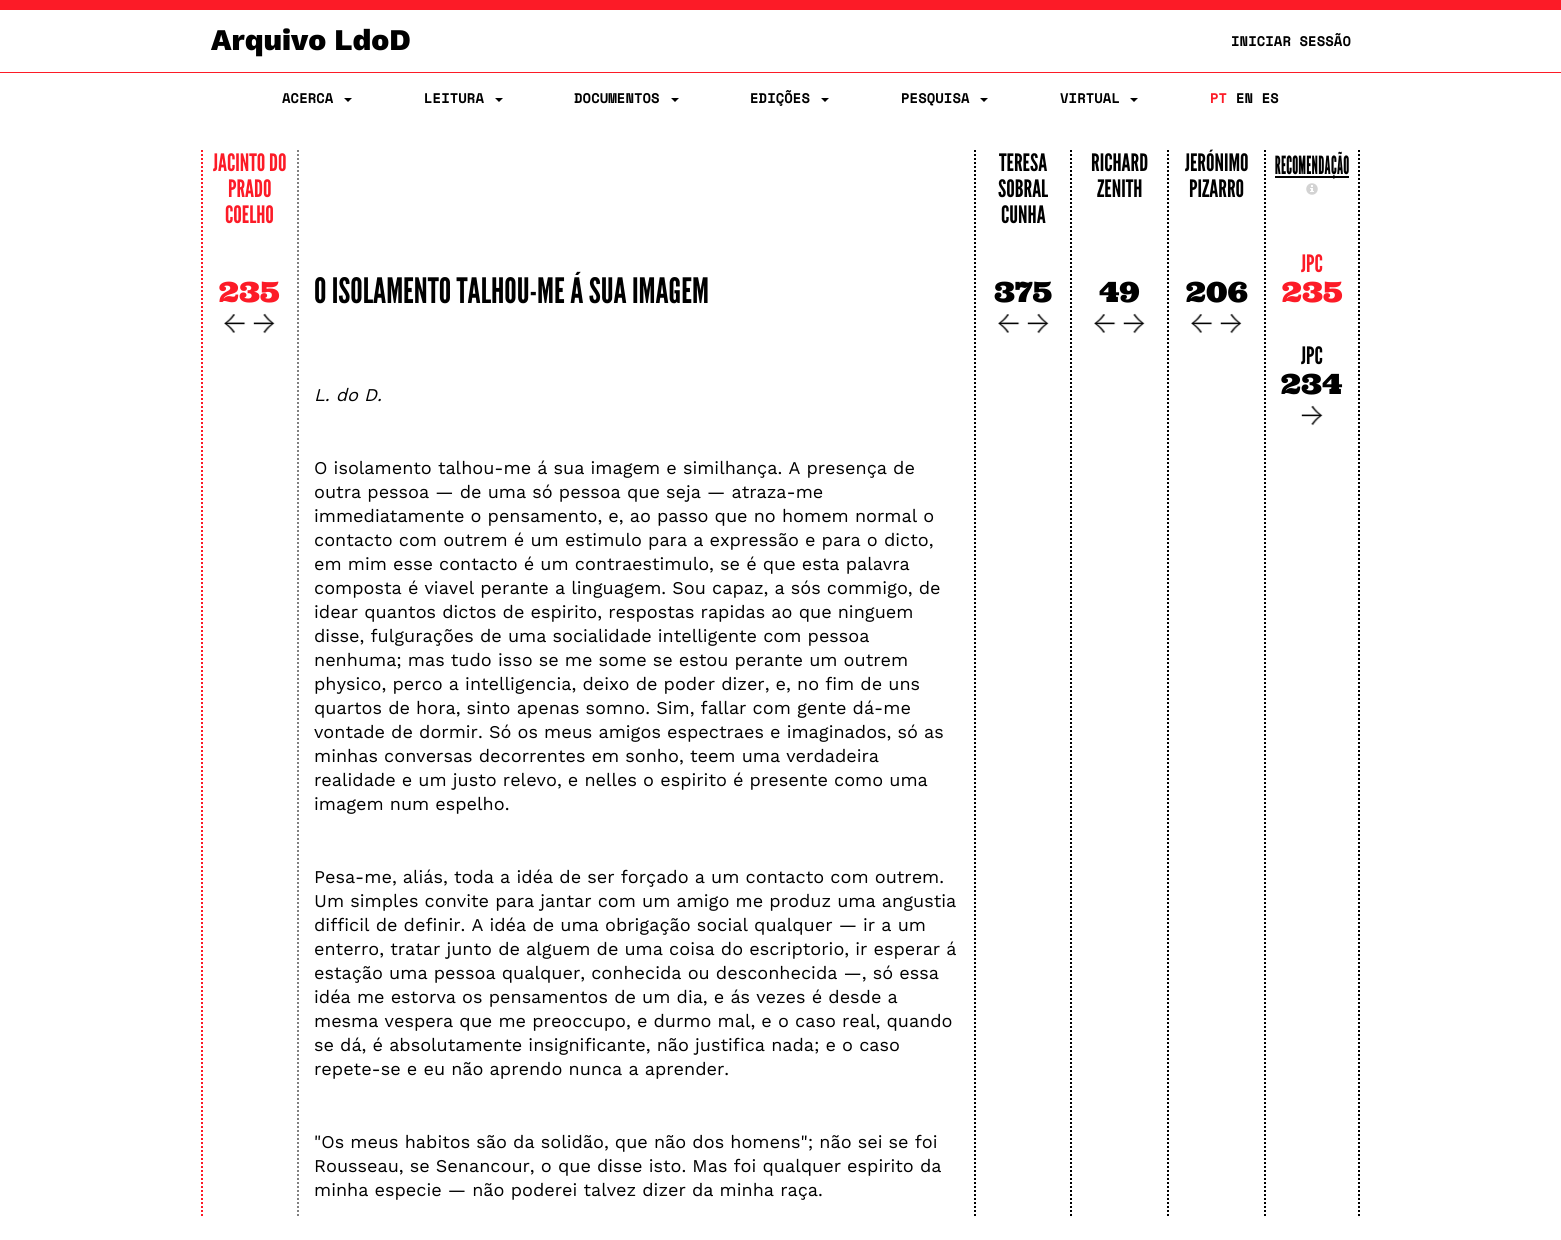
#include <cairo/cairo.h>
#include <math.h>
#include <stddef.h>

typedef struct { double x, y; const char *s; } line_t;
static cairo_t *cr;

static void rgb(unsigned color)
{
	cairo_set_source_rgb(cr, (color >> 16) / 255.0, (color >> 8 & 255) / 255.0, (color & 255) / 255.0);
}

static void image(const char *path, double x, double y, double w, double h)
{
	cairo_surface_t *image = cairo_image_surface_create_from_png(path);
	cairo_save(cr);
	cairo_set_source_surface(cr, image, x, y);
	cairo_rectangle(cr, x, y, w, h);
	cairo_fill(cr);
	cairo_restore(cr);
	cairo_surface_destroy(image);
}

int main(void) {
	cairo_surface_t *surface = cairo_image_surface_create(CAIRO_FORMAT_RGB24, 1561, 1240);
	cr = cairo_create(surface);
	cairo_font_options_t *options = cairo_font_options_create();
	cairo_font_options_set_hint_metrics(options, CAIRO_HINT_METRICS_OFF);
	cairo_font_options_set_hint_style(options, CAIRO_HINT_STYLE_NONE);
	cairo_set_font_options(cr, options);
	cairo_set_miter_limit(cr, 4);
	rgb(0xffffff);
	cairo_paint(cr);
	rgb(0xfc1b27);
	cairo_rectangle(cr, 0, 0, 1561, 10);
	cairo_fill(cr);
	cairo_rectangle(cr, 0, 72, 1561, 1);
	cairo_fill(cr);
	rgb(0x000000);
	cairo_new_path(cr);
	cairo_move_to(cr, 344, 98);
	cairo_line_to(cr, 352, 98);
	cairo_line_to(cr, 348, 102);
	cairo_close_path(cr);
	cairo_fill(cr);
	cairo_new_path(cr);
	cairo_move_to(cr, 495, 98);
	cairo_line_to(cr, 503, 98);
	cairo_line_to(cr, 499, 102);
	cairo_close_path(cr);
	cairo_fill(cr);
	cairo_new_path(cr);
	cairo_move_to(cr, 671, 98);
	cairo_line_to(cr, 679, 98);
	cairo_line_to(cr, 675, 102);
	cairo_close_path(cr);
	cairo_fill(cr);
	cairo_new_path(cr);
	cairo_move_to(cr, 821, 98);
	cairo_line_to(cr, 829, 98);
	cairo_line_to(cr, 825, 102);
	cairo_close_path(cr);
	cairo_fill(cr);
	cairo_new_path(cr);
	cairo_move_to(cr, 980, 98);
	cairo_line_to(cr, 988, 98);
	cairo_line_to(cr, 984, 102);
	cairo_close_path(cr);
	cairo_fill(cr);
	cairo_new_path(cr);
	cairo_move_to(cr, 1130, 98);
	cairo_line_to(cr, 1138, 98);
	cairo_line_to(cr, 1134, 102);
	cairo_close_path(cr);
	cairo_fill(cr);
	cairo_new_path(cr);
	cairo_move_to(cr, 202, 150);
	cairo_line_to(cr, 202, 1217);
	rgb(0xfc1b27);
	cairo_set_dash(cr, (double[]){2, 2}, 2, 0);
	cairo_stroke(cr);
	image("img/1.png", 224, 314, 22, 19);
	image("img/2.png", 253, 313, 22, 21);
	cairo_new_path(cr);
	cairo_move_to(cr, 975, 150);
	cairo_line_to(cr, 975, 1217);
	rgb(0x000000);
	cairo_stroke(cr);
	image("img/3.png", 998, 314, 22, 19);
	image("img/2.png", 1027, 313, 22, 21);
	cairo_new_path(cr);
	cairo_move_to(cr, 1071, 150);
	cairo_line_to(cr, 1071, 1217);
	cairo_stroke(cr);
	image("img/3.png", 1094, 314, 22, 19);
	image("img/4.png", 1123, 313, 22, 21);
	cairo_new_path(cr);
	cairo_move_to(cr, 1168, 150);
	cairo_line_to(cr, 1168, 1217);
	cairo_stroke(cr);
	image("img/1.png", 1191, 314, 22, 19);
	image("img/5.png", 1220, 313, 22, 21);
	cairo_new_path(cr);
	cairo_move_to(cr, 1359, 150);
	cairo_line_to(cr, 1359, 1217);
	cairo_stroke(cr);
	cairo_new_path(cr);
	cairo_move_to(cr, 1265, 150);
	cairo_line_to(cr, 1265, 1217);
	cairo_stroke(cr);
	cairo_rectangle(cr, 1275, 176, 74, 2);
	cairo_fill(cr);
	image("img/6.png", 1306, 183, 12, 12);
	image("img/2.png", 1301, 405, 22, 21);
	cairo_new_path(cr);
	cairo_move_to(cr, 298, 150);
	cairo_line_to(cr, 298, 1217);
	rgb(0x808080);
	cairo_stroke(cr);
	cairo_select_font_face(cr, "Work Sans ExtraBold", CAIRO_FONT_SLANT_NORMAL, CAIRO_FONT_WEIGHT_NORMAL);
	cairo_set_font_size(cr, 30);
	rgb(0x000000);
	cairo_move_to(cr, 211, 50);
	cairo_show_text(cr, "Arquivo LdoD");
	cairo_select_font_face(cr, "Space Mono", CAIRO_FONT_SLANT_NORMAL, CAIRO_FONT_WEIGHT_BOLD);
	cairo_set_font_size(cr, 14);
	{
		static const line_t items[] = {
			{1231, 46, "INICIAR SESSÃO"},
			{282, 103, "ACERCA"},
			{424, 103, "LEITURA"},
			{574, 103, "DOCUMENTOS"},
			{750, 103, "EDIÇÕES"},
			{901, 103, "PESQUISA"},
			{1060, 103, "VIRTUAL"},
		};
		for (size_t i = 0; i < sizeof items / sizeof *items; i++) {
			cairo_move_to(cr, items[i].x, items[i].y);
			cairo_show_text(cr, items[i].s);
		}
	}
	rgb(0xfc1b27);
	cairo_move_to(cr, 1210, 103);
	cairo_show_text(cr, "PT");
	rgb(0x000000);
	cairo_move_to(cr, 1236, 103);
	cairo_show_text(cr, "EN ES");
	cairo_select_font_face(cr, "League Gothic", CAIRO_FONT_SLANT_NORMAL, CAIRO_FONT_WEIGHT_NORMAL);
	cairo_set_font_size(cr, 24);
	rgb(0xfc1b27);
	{
		static const line_t items[] = {
			{213, 171, "JACINTO DO"},
			{228, 197, "PRADO"},
			{225, 223, "COELHO"},
		};
		for (size_t i = 0; i < sizeof items / sizeof *items; i++) {
			cairo_move_to(cr, items[i].x, items[i].y);
			cairo_show_text(cr, items[i].s);
		}
	}
	cairo_select_font_face(cr, "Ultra", CAIRO_FONT_SLANT_NORMAL, CAIRO_FONT_WEIGHT_NORMAL);
	cairo_set_font_size(cr, 28);
	cairo_move_to(cr, 219, 302);
	cairo_show_text(cr, "235");
	cairo_select_font_face(cr, "League Gothic", CAIRO_FONT_SLANT_NORMAL, CAIRO_FONT_WEIGHT_NORMAL);
	cairo_set_font_size(cr, 24);
	rgb(0x000000);
	{
		static const line_t items[] = {
			{999, 171, "TERESA"},
			{998, 197, "SOBRAL"},
			{1001, 223, "CUNHA"},
		};
		for (size_t i = 0; i < sizeof items / sizeof *items; i++) {
			cairo_move_to(cr, items[i].x, items[i].y);
			cairo_show_text(cr, items[i].s);
		}
	}
	cairo_select_font_face(cr, "Ultra", CAIRO_FONT_SLANT_NORMAL, CAIRO_FONT_WEIGHT_NORMAL);
	cairo_set_font_size(cr, 28);
	cairo_move_to(cr, 994, 302);
	cairo_show_text(cr, "375");
	cairo_select_font_face(cr, "League Gothic", CAIRO_FONT_SLANT_NORMAL, CAIRO_FONT_WEIGHT_NORMAL);
	cairo_set_font_size(cr, 24);
	cairo_move_to(cr, 1091, 171);
	cairo_show_text(cr, "RICHARD");
	cairo_move_to(cr, 1097, 197);
	cairo_show_text(cr, "ZENITH");
	cairo_select_font_face(cr, "Ultra", CAIRO_FONT_SLANT_NORMAL, CAIRO_FONT_WEIGHT_NORMAL);
	cairo_set_font_size(cr, 28);
	cairo_move_to(cr, 1099, 302);
	cairo_show_text(cr, "49");
	cairo_select_font_face(cr, "League Gothic", CAIRO_FONT_SLANT_NORMAL, CAIRO_FONT_WEIGHT_NORMAL);
	cairo_set_font_size(cr, 24);
	cairo_move_to(cr, 1185, 171);
	cairo_show_text(cr, "JERÓNIMO");
	cairo_move_to(cr, 1189, 197);
	cairo_show_text(cr, "PIZARRO");
	cairo_select_font_face(cr, "Ultra", CAIRO_FONT_SLANT_NORMAL, CAIRO_FONT_WEIGHT_NORMAL);
	cairo_set_font_size(cr, 28);
	cairo_move_to(cr, 1186, 302);
	cairo_show_text(cr, "206");
	cairo_select_font_face(cr, "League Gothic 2", CAIRO_FONT_SLANT_NORMAL, CAIRO_FONT_WEIGHT_NORMAL);
	cairo_set_font_size(cr, 25);
	cairo_move_to(cr, 1275, 174);
	cairo_show_text(cr, "RECOMENDAÇÃO");
	cairo_select_font_face(cr, "League Gothic", CAIRO_FONT_SLANT_NORMAL, CAIRO_FONT_WEIGHT_NORMAL);
	cairo_set_font_size(cr, 24);
	rgb(0xfc1b27);
	cairo_move_to(cr, 1301, 272);
	cairo_show_text(cr, "JPC");
	cairo_select_font_face(cr, "Ultra", CAIRO_FONT_SLANT_NORMAL, CAIRO_FONT_WEIGHT_NORMAL);
	cairo_set_font_size(cr, 28);
	cairo_move_to(cr, 1282, 302);
	cairo_show_text(cr, "235");
	cairo_select_font_face(cr, "League Gothic", CAIRO_FONT_SLANT_NORMAL, CAIRO_FONT_WEIGHT_NORMAL);
	cairo_set_font_size(cr, 24);
	rgb(0x000000);
	cairo_move_to(cr, 1301, 364);
	cairo_show_text(cr, "JPC");
	cairo_select_font_face(cr, "Ultra", CAIRO_FONT_SLANT_NORMAL, CAIRO_FONT_WEIGHT_NORMAL);
	cairo_set_font_size(cr, 28);
	cairo_move_to(cr, 1281, 394);
	cairo_show_text(cr, "234");
	cairo_select_font_face(cr, "League Gothic", CAIRO_FONT_SLANT_NORMAL, CAIRO_FONT_WEIGHT_NORMAL);
	cairo_set_font_size(cr, 35);
	cairo_move_to(cr, 314, 303);
	cairo_show_text(cr, "O ISOLAMENTO TALHOU-ME Á SUA IMAGEM");
	cairo_select_font_face(cr, "Work Sans", CAIRO_FONT_SLANT_ITALIC, CAIRO_FONT_WEIGHT_NORMAL);
	cairo_set_font_size(cr, 18);
	cairo_move_to(cr, 314, 401);
	cairo_show_text(cr, "L. do D.");
	cairo_select_font_face(cr, "Work Sans", CAIRO_FONT_SLANT_NORMAL, CAIRO_FONT_WEIGHT_NORMAL);
	{
		static const line_t items[] = {
			{314, 474, "O isolamento talhou-me á sua imagem e similhança. A presença de"},
			{314, 498, "outra pessoa — de uma só pessoa que seja — atraza-me"},
			{314, 522, "immediatamente o pensamento, e, ao passo que no homem normal o"},
			{314, 546, "contacto com outrem é um estimulo para a expressão e para o dicto,"},
			{314, 570, "em mim esse contacto é um contraestimulo, se é que esta palavra"},
			{314, 594, "composta é viavel perante a linguagem. Sou capaz, a sós commigo, de"},
			{314, 618, "idear quantos dictos de espirito, respostas rapidas ao que ninguem"},
			{314, 642, "disse, fulgurações de uma socialidade intelligente com pessoa"},
			{314, 666, "nenhuma; mas tudo isso se me some se estou perante um outrem"},
			{314, 690, "physico, perco a intelligencia, deixo de poder dizer, e, no fim de uns"},
			{314, 714, "quartos de hora, sinto apenas somno. Sim, fallar com gente dá-me"},
			{314, 738, "vontade de dormir. Só os meus amigos espectraes e imaginados, só as"},
			{314, 762, "minhas conversas decorrentes em sonho, teem uma verdadeira"},
			{314, 786, "realidade e um justo relevo, e nelles o espirito é presente como uma"},
			{314, 810, "imagem num espelho."},
			{314, 883, "Pesa-me, aliás, toda a idéa de ser forçado a um contacto com outrem."},
			{314, 907, "Um simples convite para jantar com um amigo me produz uma angustia"},
			{314, 931, "difficil de definir. A idéa de uma obrigação social qualquer — ir a um"},
			{314, 955, "enterro, tratar junto de alguem de uma coisa do escriptorio, ir esperar á"},
			{314, 979, "estação uma pessoa qualquer, conhecida ou desconhecida —, só essa"},
			{314, 1003, "idéa me estorva os pensamentos de um dia, e ás vezes é desde a"},
			{314, 1027, "mesma vespera que me preoccupo, e durmo mal, e o caso real, quando"},
			{314, 1051, "se dá, é absolutamente insignificante, não justifica nada; e o caso"},
			{314, 1075, "repete-se e eu não aprendo nunca a aprender."},
			{314, 1148, "\"Os meus habitos são da solidão, que não dos homens\"; não sei se foi"},
			{314, 1172, "Rousseau, se Senancour, o que disse isto. Mas foi qualquer espirito da"},
			{314, 1196, "minha especie — não poderei talvez dizer da minha raça."},
		};
		for (size_t i = 0; i < sizeof items / sizeof *items; i++) {
			cairo_move_to(cr, items[i].x, items[i].y);
			cairo_show_text(cr, items[i].s);
		}
	}
	cairo_surface_write_to_png(surface, "page.png");
	cairo_font_options_destroy(options);
	cairo_destroy(cr);
	cairo_surface_destroy(surface);
	return 0;
}
